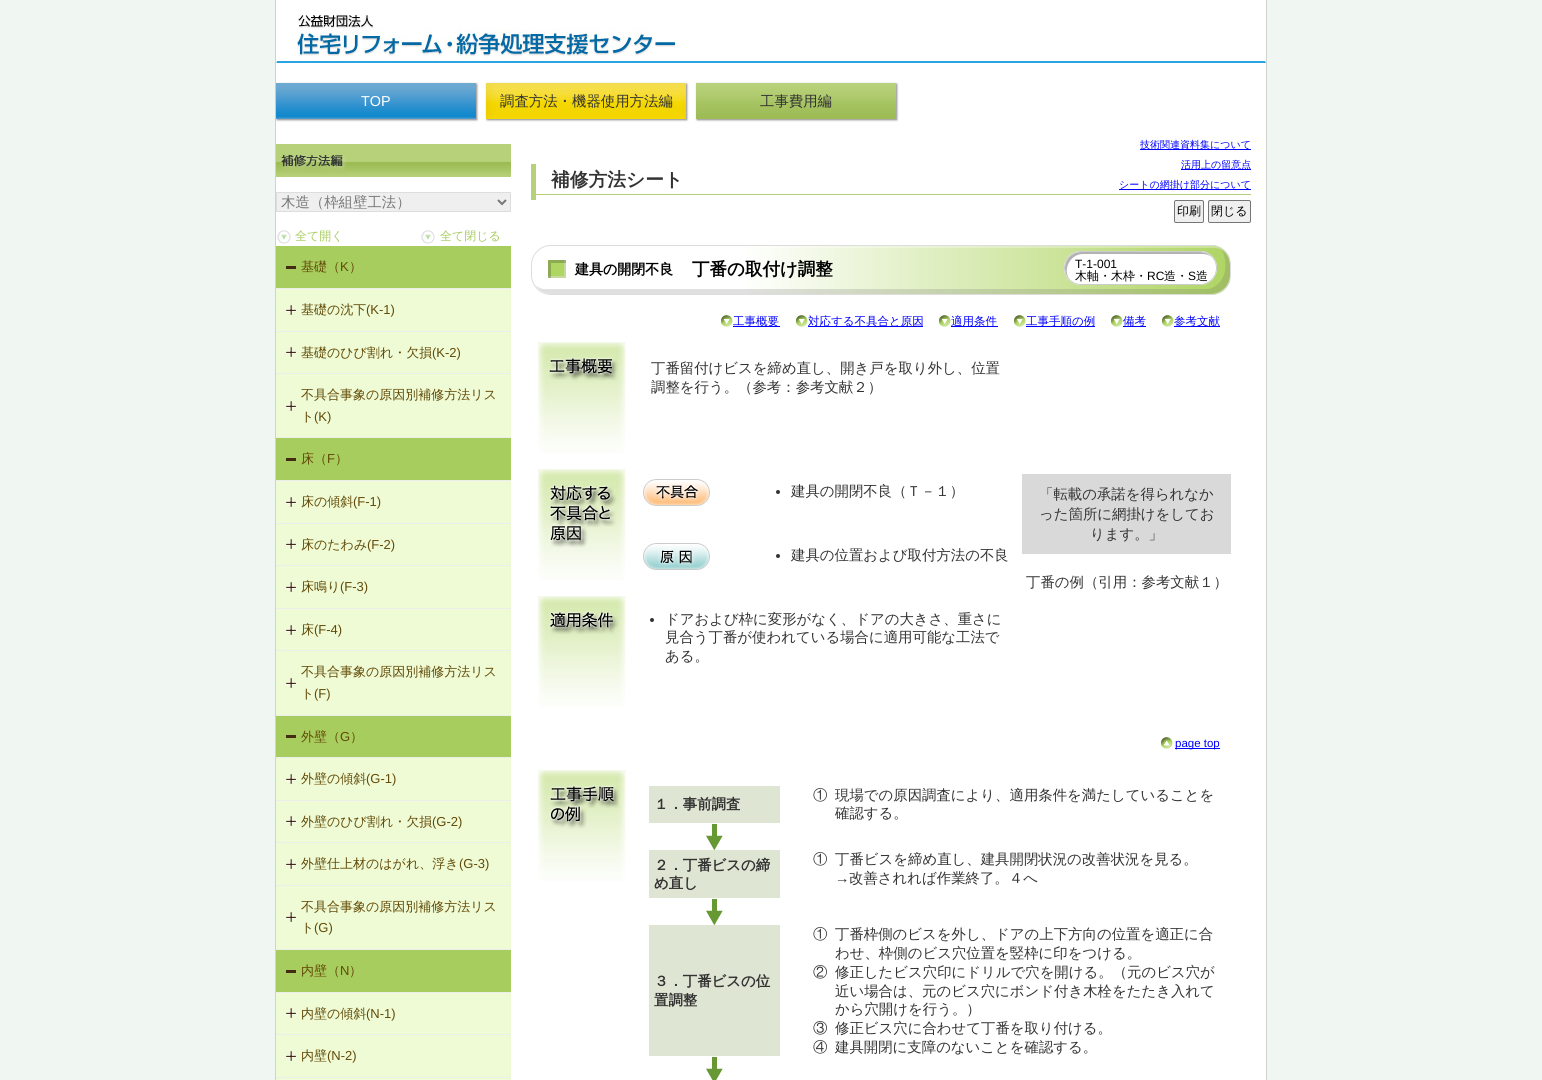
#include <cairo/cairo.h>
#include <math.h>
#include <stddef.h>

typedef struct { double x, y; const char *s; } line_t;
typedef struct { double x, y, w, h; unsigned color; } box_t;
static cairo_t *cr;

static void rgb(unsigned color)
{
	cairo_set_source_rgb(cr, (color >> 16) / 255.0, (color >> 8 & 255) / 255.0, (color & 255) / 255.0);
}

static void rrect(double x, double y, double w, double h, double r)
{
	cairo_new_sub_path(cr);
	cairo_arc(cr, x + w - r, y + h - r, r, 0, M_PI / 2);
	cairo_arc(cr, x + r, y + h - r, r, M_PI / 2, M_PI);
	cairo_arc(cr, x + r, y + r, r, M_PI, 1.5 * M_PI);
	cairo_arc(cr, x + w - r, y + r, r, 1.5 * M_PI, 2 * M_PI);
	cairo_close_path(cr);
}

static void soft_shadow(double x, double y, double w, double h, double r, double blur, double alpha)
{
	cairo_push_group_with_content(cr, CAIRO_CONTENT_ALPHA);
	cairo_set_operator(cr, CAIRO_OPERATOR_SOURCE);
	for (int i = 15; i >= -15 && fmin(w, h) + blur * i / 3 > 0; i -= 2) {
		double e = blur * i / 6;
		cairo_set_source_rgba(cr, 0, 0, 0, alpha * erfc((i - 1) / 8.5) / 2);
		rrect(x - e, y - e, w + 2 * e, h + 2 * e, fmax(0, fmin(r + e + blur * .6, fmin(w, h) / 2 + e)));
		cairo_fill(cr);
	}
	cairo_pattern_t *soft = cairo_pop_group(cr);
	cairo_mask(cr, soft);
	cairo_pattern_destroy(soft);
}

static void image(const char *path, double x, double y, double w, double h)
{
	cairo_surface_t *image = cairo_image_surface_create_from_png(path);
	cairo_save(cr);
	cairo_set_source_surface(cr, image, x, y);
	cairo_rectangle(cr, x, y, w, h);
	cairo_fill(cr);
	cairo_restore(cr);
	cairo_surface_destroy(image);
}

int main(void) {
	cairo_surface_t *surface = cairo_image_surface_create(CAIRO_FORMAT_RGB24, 1542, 1080);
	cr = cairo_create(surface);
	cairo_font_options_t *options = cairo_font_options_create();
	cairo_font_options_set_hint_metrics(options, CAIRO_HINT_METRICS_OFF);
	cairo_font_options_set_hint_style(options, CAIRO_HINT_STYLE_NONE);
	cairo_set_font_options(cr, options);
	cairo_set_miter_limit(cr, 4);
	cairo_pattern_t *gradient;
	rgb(0xf0f7f3);
	cairo_paint(cr);
	{
		static const box_t items[] = {
			{276, 0, 990, 1080, 0xffffff},
			{1266, 0, 1, 1080, 0xd1d1d1},
			{275, 0, 1, 1080, 0xd1d1d1},
		};
		for (size_t i = 0; i < sizeof items / sizeof *items; i++) {
			rgb(items[i].color);
			cairo_rectangle(cr, items[i].x, items[i].y, items[i].w, items[i].h);
			cairo_fill(cr);
		}
	}
	rgb(0x2aa4e3);
	cairo_new_path(cr);
	cairo_move_to(cr, 1266, 63);
	cairo_line_to(cr, 276, 63);
	cairo_line_to(cr, 277, 61);
	cairo_line_to(cr, 1265, 61);
	cairo_close_path(cr);
	cairo_fill(cr);
	rgb(0xffffff);
	cairo_new_path(cr);
	cairo_move_to(cr, 276, 63);
	cairo_line_to(cr, 276, 0);
	cairo_line_to(cr, 277, 1);
	cairo_line_to(cr, 277, 61);
	cairo_close_path(cr);
	cairo_fill(cr);
	image("img/1.png", 297, 13, 379, 47);
	rgb(0x888888);
	soft_shadow(277, 84, 200, 36, 0, 1, 1);
	image("img/2.png", 276, 83, 200, 36);
	soft_shadow(487, 84, 200, 36, 0, 1, 1);
	image("img/3.png", 486, 83, 200, 36);
	soft_shadow(697, 84, 200, 36, 0, 1, 1);
	image("img/4.png", 696, 83, 200, 36);
	image("img/5.png", 276, 144, 235, 33);
	rgb(0xefefef);
	cairo_rectangle(cr, 276.5, 192.5, 234, 19);
	cairo_fill_preserve(cr);
	rgb(0xdddddd);
	cairo_set_line_width(cr, 1);
	cairo_stroke(cr);
	cairo_new_path(cr);
	cairo_move_to(cr, 498, 200);
	cairo_line_to(cr, 502, 204);
	cairo_line_to(cr, 506, 200);
	rgb(0x777777);
	cairo_set_line_width(cr, 2);
	cairo_stroke(cr);
	image("img/6.png", 277, 230, 14, 14);
	image("img/6.png", 421, 230, 14, 14);
	{
		static const box_t items[] = {
			{276, 246, 235, 42, 0xa8cd5f},
			{286, 266, 10, 3, 0x442b14},
			{276, 288, 235, 1, 0xededed},
			{276, 289, 235, 42, 0xeefbd4},
		};
		for (size_t i = 0; i < sizeof items / sizeof *items; i++) {
			rgb(items[i].color);
			cairo_rectangle(cr, items[i].x, items[i].y, items[i].w, items[i].h);
			cairo_fill(cr);
		}
	}
	image("img/7.png", 286, 305, 10, 10);
	rgb(0xededed);
	cairo_rectangle(cr, 276, 331, 235, 1);
	cairo_fill(cr);
	rgb(0xeefbd4);
	cairo_rectangle(cr, 276, 332, 235, 41);
	cairo_fill(cr);
	image("img/7.png", 286, 347, 10, 10);
	rgb(0xededed);
	cairo_rectangle(cr, 276, 373, 235, 1);
	cairo_fill(cr);
	rgb(0xeefbd4);
	cairo_rectangle(cr, 276, 374, 235, 63);
	cairo_fill(cr);
	image("img/7.png", 286, 401, 10, 10);
	{
		static const box_t items[] = {
			{276, 437, 235, 1, 0xededed},
			{276, 438, 235, 42, 0xa8cd5f},
			{286, 458, 10, 3, 0x442b14},
			{276, 480, 235, 1, 0xededed},
			{276, 481, 235, 42, 0xeefbd4},
		};
		for (size_t i = 0; i < sizeof items / sizeof *items; i++) {
			rgb(items[i].color);
			cairo_rectangle(cr, items[i].x, items[i].y, items[i].w, items[i].h);
			cairo_fill(cr);
		}
	}
	image("img/7.png", 286, 497, 10, 10);
	rgb(0xededed);
	cairo_rectangle(cr, 276, 523, 235, 1);
	cairo_fill(cr);
	rgb(0xeefbd4);
	cairo_rectangle(cr, 276, 524, 235, 41);
	cairo_fill(cr);
	image("img/7.png", 286, 539, 10, 10);
	rgb(0xededed);
	cairo_rectangle(cr, 276, 565, 235, 1);
	cairo_fill(cr);
	rgb(0xeefbd4);
	cairo_rectangle(cr, 276, 566, 235, 42);
	cairo_fill(cr);
	image("img/7.png", 286, 582, 10, 10);
	rgb(0xededed);
	cairo_rectangle(cr, 276, 608, 235, 1);
	cairo_fill(cr);
	rgb(0xeefbd4);
	cairo_rectangle(cr, 276, 609, 235, 41);
	cairo_fill(cr);
	image("img/7.png", 286, 625, 10, 10);
	rgb(0xededed);
	cairo_rectangle(cr, 276, 650, 235, 1);
	cairo_fill(cr);
	rgb(0xeefbd4);
	cairo_rectangle(cr, 276, 651, 235, 64);
	cairo_fill(cr);
	image("img/7.png", 286, 678, 10, 10);
	{
		static const box_t items[] = {
			{276, 715, 235, 1, 0xededed},
			{276, 716, 235, 41, 0xa8cd5f},
			{286, 735, 10, 3, 0x442b14},
			{276, 757, 235, 1, 0xededed},
			{276, 758, 235, 42, 0xeefbd4},
		};
		for (size_t i = 0; i < sizeof items / sizeof *items; i++) {
			rgb(items[i].color);
			cairo_rectangle(cr, items[i].x, items[i].y, items[i].w, items[i].h);
			cairo_fill(cr);
		}
	}
	image("img/7.png", 286, 774, 10, 10);
	rgb(0xededed);
	cairo_rectangle(cr, 276, 800, 235, 1);
	cairo_fill(cr);
	rgb(0xeefbd4);
	cairo_rectangle(cr, 276, 801, 235, 41);
	cairo_fill(cr);
	image("img/7.png", 286, 816, 10, 10);
	rgb(0xededed);
	cairo_rectangle(cr, 276, 842, 235, 1);
	cairo_fill(cr);
	rgb(0xeefbd4);
	cairo_rectangle(cr, 276, 843, 235, 42);
	cairo_fill(cr);
	image("img/7.png", 286, 859, 10, 10);
	rgb(0xededed);
	cairo_rectangle(cr, 276, 885, 235, 1);
	cairo_fill(cr);
	rgb(0xeefbd4);
	cairo_rectangle(cr, 276, 886, 235, 63);
	cairo_fill(cr);
	image("img/7.png", 286, 912, 10, 10);
	{
		static const box_t items[] = {
			{276, 949, 235, 1, 0xededed},
			{276, 950, 235, 42, 0xa8cd5f},
			{286, 970, 10, 3, 0x442b14},
			{276, 992, 235, 1, 0xededed},
			{276, 993, 235, 41, 0xeefbd4},
		};
		for (size_t i = 0; i < sizeof items / sizeof *items; i++) {
			rgb(items[i].color);
			cairo_rectangle(cr, items[i].x, items[i].y, items[i].w, items[i].h);
			cairo_fill(cr);
		}
	}
	image("img/7.png", 286, 1008, 10, 10);
	rgb(0xededed);
	cairo_rectangle(cr, 276, 1034, 235, 1);
	cairo_fill(cr);
	rgb(0xeefbd4);
	cairo_rectangle(cr, 276, 1035, 235, 42);
	cairo_fill(cr);
	image("img/7.png", 286, 1051, 10, 10);
	rgb(0xededed);
	cairo_rectangle(cr, 276, 1077, 235, 1);
	cairo_fill(cr);
	rgb(0xeefbd4);
	cairo_rectangle(cr, 276, 1078, 235, 2);
	cairo_fill(cr);
	image("img/8.png", 531, 164, 720, 36);
	{
		static const box_t items[] = {
			{1140, 149, 111, 1, 0x0000ff},
			{1181, 169, 70, 1, 0x0000ff},
			{1119, 189, 132, 1, 0x0000ff},
		};
		for (size_t i = 0; i < sizeof items / sizeof *items; i++) {
			rgb(items[i].color);
			cairo_rectangle(cr, items[i].x, items[i].y, items[i].w, items[i].h);
			cairo_fill(cr);
		}
	}
	rgb(0xefefef);
	rrect(1174.5, 200.5, 29, 22, 1.5);
	cairo_fill_preserve(cr);
	rgb(0x767676);
	cairo_set_line_width(cr, 1);
	cairo_stroke(cr);
	rgb(0xefefef);
	rrect(1208.5, 200.5, 42, 22, 1.5);
	cairo_fill_preserve(cr);
	rgb(0x767676);
	cairo_stroke(cr);
	cairo_save(cr);
	rrect(531, 245, 700, 50, 20);
	cairo_clip(cr);
	gradient = cairo_pattern_create_linear(532, 270, 1230, 270);
	cairo_pattern_add_color_stop_rgba(gradient, 0.3, 1, 1, 1, 1);
	cairo_pattern_add_color_stop_rgba(gradient, 1, 0.686, 0.835, 0.388, 1);
	cairo_set_source(cr, gradient);
	cairo_pattern_destroy(gradient);
	cairo_rectangle(cr, 532, 245, 698, 50);
	cairo_fill(cr);
	cairo_restore(cr);
	cairo_set_source_rgba(cr, 0.392, 0.392, 0.392, 0.2);
	cairo_new_path(cr);
	cairo_move_to(cr, 535, 285);
	cairo_curve_to(cr, 538, 290, 544, 294, 551, 294);
	cairo_line_to(cr, 1211, 294);
	cairo_curve_to(cr, 1221, 294, 1230, 285, 1230, 275);
	cairo_line_to(cr, 1230, 265);
	cairo_curve_to(cr, 1230, 258, 1226, 252, 1221, 249);
	cairo_curve_to(cr, 1226, 255, 1227, 270, 1223, 277);
	cairo_curve_to(cr, 1220, 284, 1213, 289, 1206, 289);
	cairo_line_to(cr, 544, 289);
	cairo_curve_to(cr, 541, 289, 538, 287, 535, 285);
	cairo_close_path(cr);
	cairo_fill(cr);
	cairo_set_source_rgba(cr, 1, 1, 1, 0.3);
	cairo_new_path(cr);
	cairo_move_to(cr, 554, 248);
	cairo_line_to(cr, 1214, 248);
	cairo_curve_to(cr, 1218, 248, 1221, 249, 1224, 251);
	cairo_curve_to(cr, 1220, 248, 1216, 246, 1211, 246);
	cairo_line_to(cr, 551, 246);
	cairo_curve_to(cr, 541, 246, 532, 255, 532, 265);
	cairo_line_to(cr, 532, 275);
	cairo_curve_to(cr, 532, 283, 537, 289, 543, 292);
	cairo_curve_to(cr, 538, 289, 535, 283, 535, 277);
	cairo_line_to(cr, 535, 267);
	cairo_curve_to(cr, 535, 257, 544, 248, 554, 248);
	cairo_close_path(cr);
	cairo_fill(cr);
	rrect(531.5, 245.5, 699, 49, 19.5);
	rgb(0xdddddd);
	cairo_stroke(cr);
	rgb(0xafd563);
	cairo_rectangle(cr, 548, 260, 16, 16);
	cairo_fill(cr);
	cairo_save(cr);
	cairo_rectangle(cr, 548, 260, 18, 18);
	cairo_clip(cr);
	rgb(0xc6d9a0);
	cairo_set_fill_rule(cr, CAIRO_FILL_RULE_EVEN_ODD);
	cairo_new_path(cr);
	cairo_move_to(cr, 449, 161);
	cairo_line_to(cr, 665, 161);
	cairo_line_to(cr, 665, 377);
	cairo_line_to(cr, 449, 377);
	cairo_close_path(cr);
	cairo_move_to(cr, 546, 258);
	cairo_line_to(cr, 564, 258);
	cairo_line_to(cr, 564, 276);
	cairo_line_to(cr, 546, 276);
	cairo_close_path(cr);
	cairo_fill(cr);
	cairo_set_source_rgba(cr, 0, 0, 0, 0.2);
	cairo_new_path(cr);
	cairo_move_to(cr, 449, 161);
	cairo_line_to(cr, 665, 161);
	cairo_line_to(cr, 665, 377);
	cairo_line_to(cr, 449, 377);
	cairo_close_path(cr);
	cairo_move_to(cr, 551, 263);
	cairo_line_to(cr, 569, 263);
	cairo_line_to(cr, 569, 281);
	cairo_line_to(cr, 551, 281);
	cairo_close_path(cr);
	cairo_fill(cr);
	cairo_restore(cr);
	rgb(0xffffff);
	rrect(1064, 251, 153, 34, 17);
	cairo_fill(cr);
	rgb(0xb3b3b3);
	cairo_new_path(cr);
	cairo_move_to(cr, 1083, 254);
	cairo_line_to(cr, 1202, 254);
	cairo_curve_to(cr, 1206, 254, 1209, 255, 1212, 257);
	cairo_curve_to(cr, 1209, 254, 1205, 252, 1200, 252);
	cairo_line_to(cr, 1081, 252);
	cairo_curve_to(cr, 1072, 252, 1065, 259, 1065, 268);
	cairo_curve_to(cr, 1065, 273, 1067, 277, 1070, 280);
	cairo_curve_to(cr, 1062, 270, 1070, 254, 1083, 254);
	cairo_close_path(cr);
	cairo_fill(cr);
	rrect(1064.5, 251.5, 152, 33, 16.5);
	rgb(0xcccccc);
	cairo_stroke(cr);
	image("img/9.png", 721, 315, 12, 12);
	rgb(0x0000ff);
	cairo_rectangle(cr, 733, 326, 47, 1);
	cairo_fill(cr);
	image("img/9.png", 796, 315, 12, 12);
	cairo_rectangle(cr, 808, 326, 115, 1);
	cairo_fill(cr);
	image("img/9.png", 939, 315, 12, 12);
	cairo_rectangle(cr, 951, 326, 47, 1);
	cairo_fill(cr);
	image("img/9.png", 1014, 315, 12, 12);
	cairo_rectangle(cr, 1026, 326, 69, 1);
	cairo_fill(cr);
	image("img/9.png", 1111, 315, 12, 12);
	cairo_rectangle(cr, 1123, 326, 23, 1);
	cairo_fill(cr);
	image("img/9.png", 1162, 315, 12, 12);
	cairo_rectangle(cr, 1174, 326, 46, 1);
	cairo_fill(cr);
	image("img/10.png", 538, 342, 88, 111);
	rgb(0xd9d9d9);
	cairo_rectangle(cr, 1022, 474, 209, 80);
	cairo_fill(cr);
	image("img/11.png", 538, 469, 88, 111);
	image("img/12.png", 643, 479, 67, 27);
	rgb(0x333333);
	cairo_arc(cr, 778, 492, 2, 0, 2 * M_PI);
	cairo_fill(cr);
	image("img/13.png", 643, 543, 67, 27);
	cairo_arc(cr, 778, 556, 2, 0, 2 * M_PI);
	cairo_fill(cr);
	image("img/14.png", 538, 596, 88, 111);
	cairo_arc(cr, 652, 620, 2, 0, 2 * M_PI);
	cairo_fill(cr);
	image("img/15.png", 1161, 737, 12, 12);
	rgb(0x0000ff);
	cairo_rectangle(cr, 1175, 748, 45, 1);
	cairo_fill(cr);
	image("img/16.png", 538, 770, 88, 111);
	rgb(0xdfe5d3);
	cairo_rectangle(cr, 649, 786, 131, 37);
	cairo_fill(cr);
	image("img/17.png", 706, 824, 17, 26);
	cairo_rectangle(cr, 649, 850, 131, 48);
	cairo_fill(cr);
	image("img/17.png", 706, 899, 17, 26);
	cairo_rectangle(cr, 649, 925, 131, 131);
	cairo_fill(cr);
	image("img/18.png", 706, 1057, 17, 23);
	cairo_select_font_face(cr, "Liberation Sans", CAIRO_FONT_SLANT_NORMAL, CAIRO_FONT_WEIGHT_NORMAL);
	cairo_set_font_size(cr, 14.4);
	rgb(0xffffff);
	cairo_move_to(cr, 361, 106);
	cairo_show_text(cr, "TOP");
	cairo_select_font_face(cr, "WenQuanYi Zen Hei Medium", CAIRO_FONT_SLANT_NORMAL, CAIRO_FONT_WEIGHT_NORMAL);
	rgb(0x333333);
	cairo_move_to(cr, 500, 106);
	cairo_show_text(cr, "調査方法・機器使用方法編");
	cairo_move_to(cr, 760, 106);
	cairo_show_text(cr, "工事費用編");
	rgb(0x777777);
	cairo_move_to(cr, 281, 207);
	cairo_show_text(cr, "木造（枠組壁工法）");
	cairo_set_font_size(cr, 12);
	rgb(0xa8cd5f);
	cairo_move_to(cr, 295, 240);
	cairo_show_text(cr, "全て開く");
	cairo_move_to(cr, 440, 240);
	cairo_show_text(cr, "全て閉じる");
	cairo_set_font_size(cr, 13);
	rgb(0x624907);
	cairo_move_to(cr, 301, 271);
	cairo_show_text(cr, "基礎（");
	cairo_select_font_face(cr, "Liberation Sans", CAIRO_FONT_SLANT_NORMAL, CAIRO_FONT_WEIGHT_NORMAL);
	cairo_move_to(cr, 340, 271);
	cairo_show_text(cr, "K");
	cairo_select_font_face(cr, "WenQuanYi Zen Hei Medium", CAIRO_FONT_SLANT_NORMAL, CAIRO_FONT_WEIGHT_NORMAL);
	cairo_move_to(cr, 349, 271);
	cairo_show_text(cr, "）");
	cairo_move_to(cr, 301, 314);
	cairo_show_text(cr, "基礎の沈下");
	cairo_select_font_face(cr, "Liberation Sans", CAIRO_FONT_SLANT_NORMAL, CAIRO_FONT_WEIGHT_NORMAL);
	cairo_move_to(cr, 366, 314);
	cairo_show_text(cr, "(K-1)");
	cairo_select_font_face(cr, "WenQuanYi Zen Hei Medium", CAIRO_FONT_SLANT_NORMAL, CAIRO_FONT_WEIGHT_NORMAL);
	cairo_move_to(cr, 301, 357);
	cairo_show_text(cr, "基礎のひび割れ・欠損");
	cairo_select_font_face(cr, "Liberation Sans", CAIRO_FONT_SLANT_NORMAL, CAIRO_FONT_WEIGHT_NORMAL);
	cairo_move_to(cr, 432, 357);
	cairo_show_text(cr, "(K-2)");
	cairo_select_font_face(cr, "WenQuanYi Zen Hei Medium", CAIRO_FONT_SLANT_NORMAL, CAIRO_FONT_WEIGHT_NORMAL);
	cairo_move_to(cr, 301, 399);
	cairo_show_text(cr, "不具合事象の原因別補修方法リス");
	cairo_move_to(cr, 301, 421);
	cairo_show_text(cr, "ト");
	cairo_select_font_face(cr, "Liberation Sans", CAIRO_FONT_SLANT_NORMAL, CAIRO_FONT_WEIGHT_NORMAL);
	cairo_move_to(cr, 314, 421);
	cairo_show_text(cr, "(K)");
	cairo_select_font_face(cr, "WenQuanYi Zen Hei Medium", CAIRO_FONT_SLANT_NORMAL, CAIRO_FONT_WEIGHT_NORMAL);
	cairo_move_to(cr, 301, 463);
	cairo_show_text(cr, "床（");
	cairo_select_font_face(cr, "Liberation Sans", CAIRO_FONT_SLANT_NORMAL, CAIRO_FONT_WEIGHT_NORMAL);
	cairo_move_to(cr, 327, 463);
	cairo_show_text(cr, "F");
	cairo_select_font_face(cr, "WenQuanYi Zen Hei Medium", CAIRO_FONT_SLANT_NORMAL, CAIRO_FONT_WEIGHT_NORMAL);
	cairo_move_to(cr, 335, 463);
	cairo_show_text(cr, "）");
	cairo_move_to(cr, 301, 506);
	cairo_show_text(cr, "床の傾斜");
	cairo_select_font_face(cr, "Liberation Sans", CAIRO_FONT_SLANT_NORMAL, CAIRO_FONT_WEIGHT_NORMAL);
	cairo_move_to(cr, 353, 506);
	cairo_show_text(cr, "(F-1)");
	cairo_select_font_face(cr, "WenQuanYi Zen Hei Medium", CAIRO_FONT_SLANT_NORMAL, CAIRO_FONT_WEIGHT_NORMAL);
	cairo_move_to(cr, 301, 549);
	cairo_show_text(cr, "床のたわみ");
	cairo_select_font_face(cr, "Liberation Sans", CAIRO_FONT_SLANT_NORMAL, CAIRO_FONT_WEIGHT_NORMAL);
	cairo_move_to(cr, 367, 549);
	cairo_show_text(cr, "(F-2)");
	cairo_select_font_face(cr, "WenQuanYi Zen Hei Medium", CAIRO_FONT_SLANT_NORMAL, CAIRO_FONT_WEIGHT_NORMAL);
	cairo_move_to(cr, 301, 591);
	cairo_show_text(cr, "床鳴り");
	cairo_select_font_face(cr, "Liberation Sans", CAIRO_FONT_SLANT_NORMAL, CAIRO_FONT_WEIGHT_NORMAL);
	cairo_move_to(cr, 340, 591);
	cairo_show_text(cr, "(F-3)");
	cairo_select_font_face(cr, "WenQuanYi Zen Hei Medium", CAIRO_FONT_SLANT_NORMAL, CAIRO_FONT_WEIGHT_NORMAL);
	cairo_move_to(cr, 301, 634);
	cairo_show_text(cr, "床");
	cairo_select_font_face(cr, "Liberation Sans", CAIRO_FONT_SLANT_NORMAL, CAIRO_FONT_WEIGHT_NORMAL);
	cairo_move_to(cr, 314, 634);
	cairo_show_text(cr, "(F-4)");
	cairo_select_font_face(cr, "WenQuanYi Zen Hei Medium", CAIRO_FONT_SLANT_NORMAL, CAIRO_FONT_WEIGHT_NORMAL);
	cairo_move_to(cr, 301, 676);
	cairo_show_text(cr, "不具合事象の原因別補修方法リス");
	cairo_move_to(cr, 301, 698);
	cairo_show_text(cr, "ト");
	cairo_select_font_face(cr, "Liberation Sans", CAIRO_FONT_SLANT_NORMAL, CAIRO_FONT_WEIGHT_NORMAL);
	cairo_move_to(cr, 314, 698);
	cairo_show_text(cr, "(F)");
	cairo_select_font_face(cr, "WenQuanYi Zen Hei Medium", CAIRO_FONT_SLANT_NORMAL, CAIRO_FONT_WEIGHT_NORMAL);
	cairo_move_to(cr, 301, 741);
	cairo_show_text(cr, "外壁（");
	cairo_select_font_face(cr, "Liberation Sans", CAIRO_FONT_SLANT_NORMAL, CAIRO_FONT_WEIGHT_NORMAL);
	cairo_move_to(cr, 340, 741);
	cairo_show_text(cr, "G");
	cairo_select_font_face(cr, "WenQuanYi Zen Hei Medium", CAIRO_FONT_SLANT_NORMAL, CAIRO_FONT_WEIGHT_NORMAL);
	cairo_move_to(cr, 350, 741);
	cairo_show_text(cr, "）");
	cairo_move_to(cr, 301, 783);
	cairo_show_text(cr, "外壁の傾斜");
	cairo_select_font_face(cr, "Liberation Sans", CAIRO_FONT_SLANT_NORMAL, CAIRO_FONT_WEIGHT_NORMAL);
	cairo_move_to(cr, 366, 783);
	cairo_show_text(cr, "(G-1)");
	cairo_select_font_face(cr, "WenQuanYi Zen Hei Medium", CAIRO_FONT_SLANT_NORMAL, CAIRO_FONT_WEIGHT_NORMAL);
	cairo_move_to(cr, 301, 826);
	cairo_show_text(cr, "外壁のひび割れ・欠損");
	cairo_select_font_face(cr, "Liberation Sans", CAIRO_FONT_SLANT_NORMAL, CAIRO_FONT_WEIGHT_NORMAL);
	cairo_move_to(cr, 432, 826);
	cairo_show_text(cr, "(G-2)");
	cairo_select_font_face(cr, "WenQuanYi Zen Hei Medium", CAIRO_FONT_SLANT_NORMAL, CAIRO_FONT_WEIGHT_NORMAL);
	cairo_move_to(cr, 301, 868);
	cairo_show_text(cr, "外壁仕上材のはがれ、浮き");
	cairo_select_font_face(cr, "Liberation Sans", CAIRO_FONT_SLANT_NORMAL, CAIRO_FONT_WEIGHT_NORMAL);
	cairo_move_to(cr, 459, 868);
	cairo_show_text(cr, "(G-3)");
	cairo_select_font_face(cr, "WenQuanYi Zen Hei Medium", CAIRO_FONT_SLANT_NORMAL, CAIRO_FONT_WEIGHT_NORMAL);
	cairo_move_to(cr, 301, 911);
	cairo_show_text(cr, "不具合事象の原因別補修方法リス");
	cairo_move_to(cr, 301, 932);
	cairo_show_text(cr, "ト");
	cairo_select_font_face(cr, "Liberation Sans", CAIRO_FONT_SLANT_NORMAL, CAIRO_FONT_WEIGHT_NORMAL);
	cairo_move_to(cr, 314, 932);
	cairo_show_text(cr, "(G)");
	cairo_select_font_face(cr, "WenQuanYi Zen Hei Medium", CAIRO_FONT_SLANT_NORMAL, CAIRO_FONT_WEIGHT_NORMAL);
	cairo_move_to(cr, 301, 975);
	cairo_show_text(cr, "内壁（");
	cairo_select_font_face(cr, "Liberation Sans", CAIRO_FONT_SLANT_NORMAL, CAIRO_FONT_WEIGHT_NORMAL);
	cairo_move_to(cr, 340, 975);
	cairo_show_text(cr, "N");
	cairo_select_font_face(cr, "WenQuanYi Zen Hei Medium", CAIRO_FONT_SLANT_NORMAL, CAIRO_FONT_WEIGHT_NORMAL);
	cairo_move_to(cr, 349, 975);
	cairo_show_text(cr, "）");
	cairo_move_to(cr, 301, 1018);
	cairo_show_text(cr, "内壁の傾斜");
	cairo_select_font_face(cr, "Liberation Sans", CAIRO_FONT_SLANT_NORMAL, CAIRO_FONT_WEIGHT_NORMAL);
	cairo_move_to(cr, 366, 1018);
	cairo_show_text(cr, "(N-1)");
	cairo_select_font_face(cr, "WenQuanYi Zen Hei Medium", CAIRO_FONT_SLANT_NORMAL, CAIRO_FONT_WEIGHT_NORMAL);
	cairo_move_to(cr, 301, 1060);
	cairo_show_text(cr, "内壁");
	cairo_select_font_face(cr, "Liberation Sans", CAIRO_FONT_SLANT_NORMAL, CAIRO_FONT_WEIGHT_NORMAL);
	cairo_move_to(cr, 327, 1060);
	cairo_show_text(cr, "(N-2)");
	cairo_select_font_face(cr, "WenQuanYi Zen Hei", CAIRO_FONT_SLANT_NORMAL, CAIRO_FONT_WEIGHT_BOLD);
	cairo_set_font_size(cr, 18.75);
	rgb(0x333333);
	cairo_move_to(cr, 551, 186);
	cairo_show_text(cr, "補修方法シート");
	cairo_select_font_face(cr, "WenQuanYi Zen Hei Medium", CAIRO_FONT_SLANT_NORMAL, CAIRO_FONT_WEIGHT_NORMAL);
	cairo_set_font_size(cr, 10);
	rgb(0x0000ff);
	{
		static const line_t items[] = {
			{1140, 148, "技術関連資料集について"},
			{1181, 168, "活用上の留意点"},
			{1119, 188, "シートの網掛け部分について"},
		};
		for (size_t i = 0; i < sizeof items / sizeof *items; i++) {
			cairo_move_to(cr, items[i].x, items[i].y);
			cairo_show_text(cr, items[i].s);
		}
	}
	cairo_set_font_size(cr, 12);
	rgb(0x000000);
	cairo_move_to(cr, 1177, 215);
	cairo_show_text(cr, "印刷");
	cairo_move_to(cr, 1211, 215);
	cairo_show_text(cr, "閉じる");
	cairo_select_font_face(cr, "WenQuanYi Zen Hei", CAIRO_FONT_SLANT_NORMAL, CAIRO_FONT_WEIGHT_BOLD);
	cairo_set_font_size(cr, 14);
	cairo_move_to(cr, 575, 274);
	cairo_show_text(cr, "建具の開閉不良");
	cairo_set_font_size(cr, 17.5);
	cairo_move_to(cr, 692, 275);
	cairo_show_text(cr, "丁番の取付け調整");
	cairo_select_font_face(cr, "Liberation Sans", CAIRO_FONT_SLANT_NORMAL, CAIRO_FONT_WEIGHT_NORMAL);
	cairo_set_font_size(cr, 12);
	cairo_move_to(cr, 1075, 268);
	cairo_show_text(cr, "T-1-001");
	cairo_select_font_face(cr, "WenQuanYi Zen Hei Medium", CAIRO_FONT_SLANT_NORMAL, CAIRO_FONT_WEIGHT_NORMAL);
	cairo_move_to(cr, 1075, 280);
	cairo_show_text(cr, "木軸・木枠・");
	cairo_select_font_face(cr, "Liberation Sans", CAIRO_FONT_SLANT_NORMAL, CAIRO_FONT_WEIGHT_NORMAL);
	cairo_move_to(cr, 1147, 280);
	cairo_show_text(cr, "RC");
	cairo_select_font_face(cr, "WenQuanYi Zen Hei Medium", CAIRO_FONT_SLANT_NORMAL, CAIRO_FONT_WEIGHT_NORMAL);
	cairo_move_to(cr, 1164, 280);
	cairo_show_text(cr, "造・");
	cairo_select_font_face(cr, "Liberation Sans", CAIRO_FONT_SLANT_NORMAL, CAIRO_FONT_WEIGHT_NORMAL);
	cairo_move_to(cr, 1188, 280);
	cairo_show_text(cr, "S");
	cairo_select_font_face(cr, "WenQuanYi Zen Hei Medium", CAIRO_FONT_SLANT_NORMAL, CAIRO_FONT_WEIGHT_NORMAL);
	cairo_move_to(cr, 1196, 280);
	cairo_show_text(cr, "造");
	cairo_set_font_size(cr, 11.5);
	rgb(0x0000ff);
	{
		static const line_t items[] = {
			{733, 325, "工事概要"},
			{808, 325, "対応する不具合と原因"},
			{951, 325, "適用条件"},
			{1026, 325, "工事手順の例"},
			{1123, 325, "備考"},
			{1174, 325, "参考文献"},
		};
		for (size_t i = 0; i < sizeof items / sizeof *items; i++) {
			cairo_move_to(cr, items[i].x, items[i].y);
			cairo_show_text(cr, items[i].s);
		}
	}
	cairo_set_font_size(cr, 14.4);
	rgb(0x333333);
	{
		static const line_t items[] = {
			{651, 373, "丁番留付けビスを締め直し、開き戸を取り外し、位置"},
			{651, 392, "調整を行う。（参考：参考文献２）"},
			{1039, 499, "「転載の承諾を得られなか"},
			{1039, 519, "った箇所に網掛けをしてお"},
			{1090, 539, "ります。」"},
			{1026, 587, "丁番の例（引用：参考文献１）"},
			{791, 496, "建具の開閉不良（Ｔ－１）"},
			{791, 560, "建具の位置および取付方法の不良"},
			{665, 624, "ドアおよび枠に変形がなく、ドアの大きさ、重さに"},
			{665, 642, "見合う丁番が使われている場合に適用可能な工法で"},
			{665, 661, "ある。"},
		};
		for (size_t i = 0; i < sizeof items / sizeof *items; i++) {
			cairo_move_to(cr, items[i].x, items[i].y);
			cairo_show_text(cr, items[i].s);
		}
	}
	cairo_select_font_face(cr, "Liberation Sans", CAIRO_FONT_SLANT_NORMAL, CAIRO_FONT_WEIGHT_NORMAL);
	cairo_set_font_size(cr, 11.5);
	rgb(0x0000ff);
	cairo_move_to(cr, 1175, 747);
	cairo_show_text(cr, "page top");
	cairo_select_font_face(cr, "WenQuanYi Zen Hei", CAIRO_FONT_SLANT_NORMAL, CAIRO_FONT_WEIGHT_BOLD);
	cairo_set_font_size(cr, 14.4);
	rgb(0x333333);
	cairo_move_to(cr, 654, 809);
	cairo_show_text(cr, "１．事前調査");
	cairo_select_font_face(cr, "WenQuanYi Zen Hei Medium", CAIRO_FONT_SLANT_NORMAL, CAIRO_FONT_WEIGHT_NORMAL);
	{
		static const line_t items[] = {
			{813, 800, "①"},
			{835, 800, "現場での原因調査により、適用条件を満たしていることを"},
			{835, 818, "確認する。"},
		};
		for (size_t i = 0; i < sizeof items / sizeof *items; i++) {
			cairo_move_to(cr, items[i].x, items[i].y);
			cairo_show_text(cr, items[i].s);
		}
	}
	cairo_select_font_face(cr, "WenQuanYi Zen Hei", CAIRO_FONT_SLANT_NORMAL, CAIRO_FONT_WEIGHT_BOLD);
	cairo_move_to(cr, 654, 870);
	cairo_show_text(cr, "２．丁番ビスの締");
	cairo_move_to(cr, 654, 888);
	cairo_show_text(cr, "め直し");
	cairo_select_font_face(cr, "WenQuanYi Zen Hei Medium", CAIRO_FONT_SLANT_NORMAL, CAIRO_FONT_WEIGHT_NORMAL);
	cairo_move_to(cr, 813, 864);
	cairo_show_text(cr, "①");
	cairo_move_to(cr, 835, 864);
	cairo_show_text(cr, "丁番ビスを締め直し、建具開閉状況の改善状況を見る。");
	cairo_select_font_face(cr, "Liberation Sans", CAIRO_FONT_SLANT_NORMAL, CAIRO_FONT_WEIGHT_NORMAL);
	cairo_move_to(cr, 835, 883);
	cairo_show_text(cr, "→");
	cairo_select_font_face(cr, "WenQuanYi Zen Hei Medium", CAIRO_FONT_SLANT_NORMAL, CAIRO_FONT_WEIGHT_NORMAL);
	cairo_move_to(cr, 849, 883);
	cairo_show_text(cr, "改善されれば作業終了。４へ");
	cairo_select_font_face(cr, "WenQuanYi Zen Hei", CAIRO_FONT_SLANT_NORMAL, CAIRO_FONT_WEIGHT_BOLD);
	cairo_move_to(cr, 654, 986);
	cairo_show_text(cr, "３．丁番ビスの位");
	cairo_move_to(cr, 654, 1005);
	cairo_show_text(cr, "置調整");
	cairo_select_font_face(cr, "WenQuanYi Zen Hei Medium", CAIRO_FONT_SLANT_NORMAL, CAIRO_FONT_WEIGHT_NORMAL);
	{
		static const line_t items[] = {
			{813, 939, "①"},
			{835, 939, "丁番枠側のビスを外し、ドアの上下方向の位置を適正に合"},
			{835, 958, "わせ、枠側のビス穴位置を竪枠に印をつける。"},
			{813, 977, "②"},
			{835, 977, "修正したビス穴印にドリルで穴を開ける。（元のビス穴が"},
			{835, 996, "近い場合は、元のビス穴にボンド付き木栓をたたき入れて"},
			{835, 1014, "から穴開けを行う。）"},
			{813, 1033, "③"},
			{835, 1033, "修正ビス穴に合わせて丁番を取り付ける。"},
			{813, 1052, "④"},
			{835, 1052, "建具開閉に支障のないことを確認する。"},
		};
		for (size_t i = 0; i < sizeof items / sizeof *items; i++) {
			cairo_move_to(cr, items[i].x, items[i].y);
			cairo_show_text(cr, items[i].s);
		}
	}
	cairo_surface_write_to_png(surface, "page.png");
	cairo_font_options_destroy(options);
	cairo_destroy(cr);
	cairo_surface_destroy(surface);
	return 0;
}
